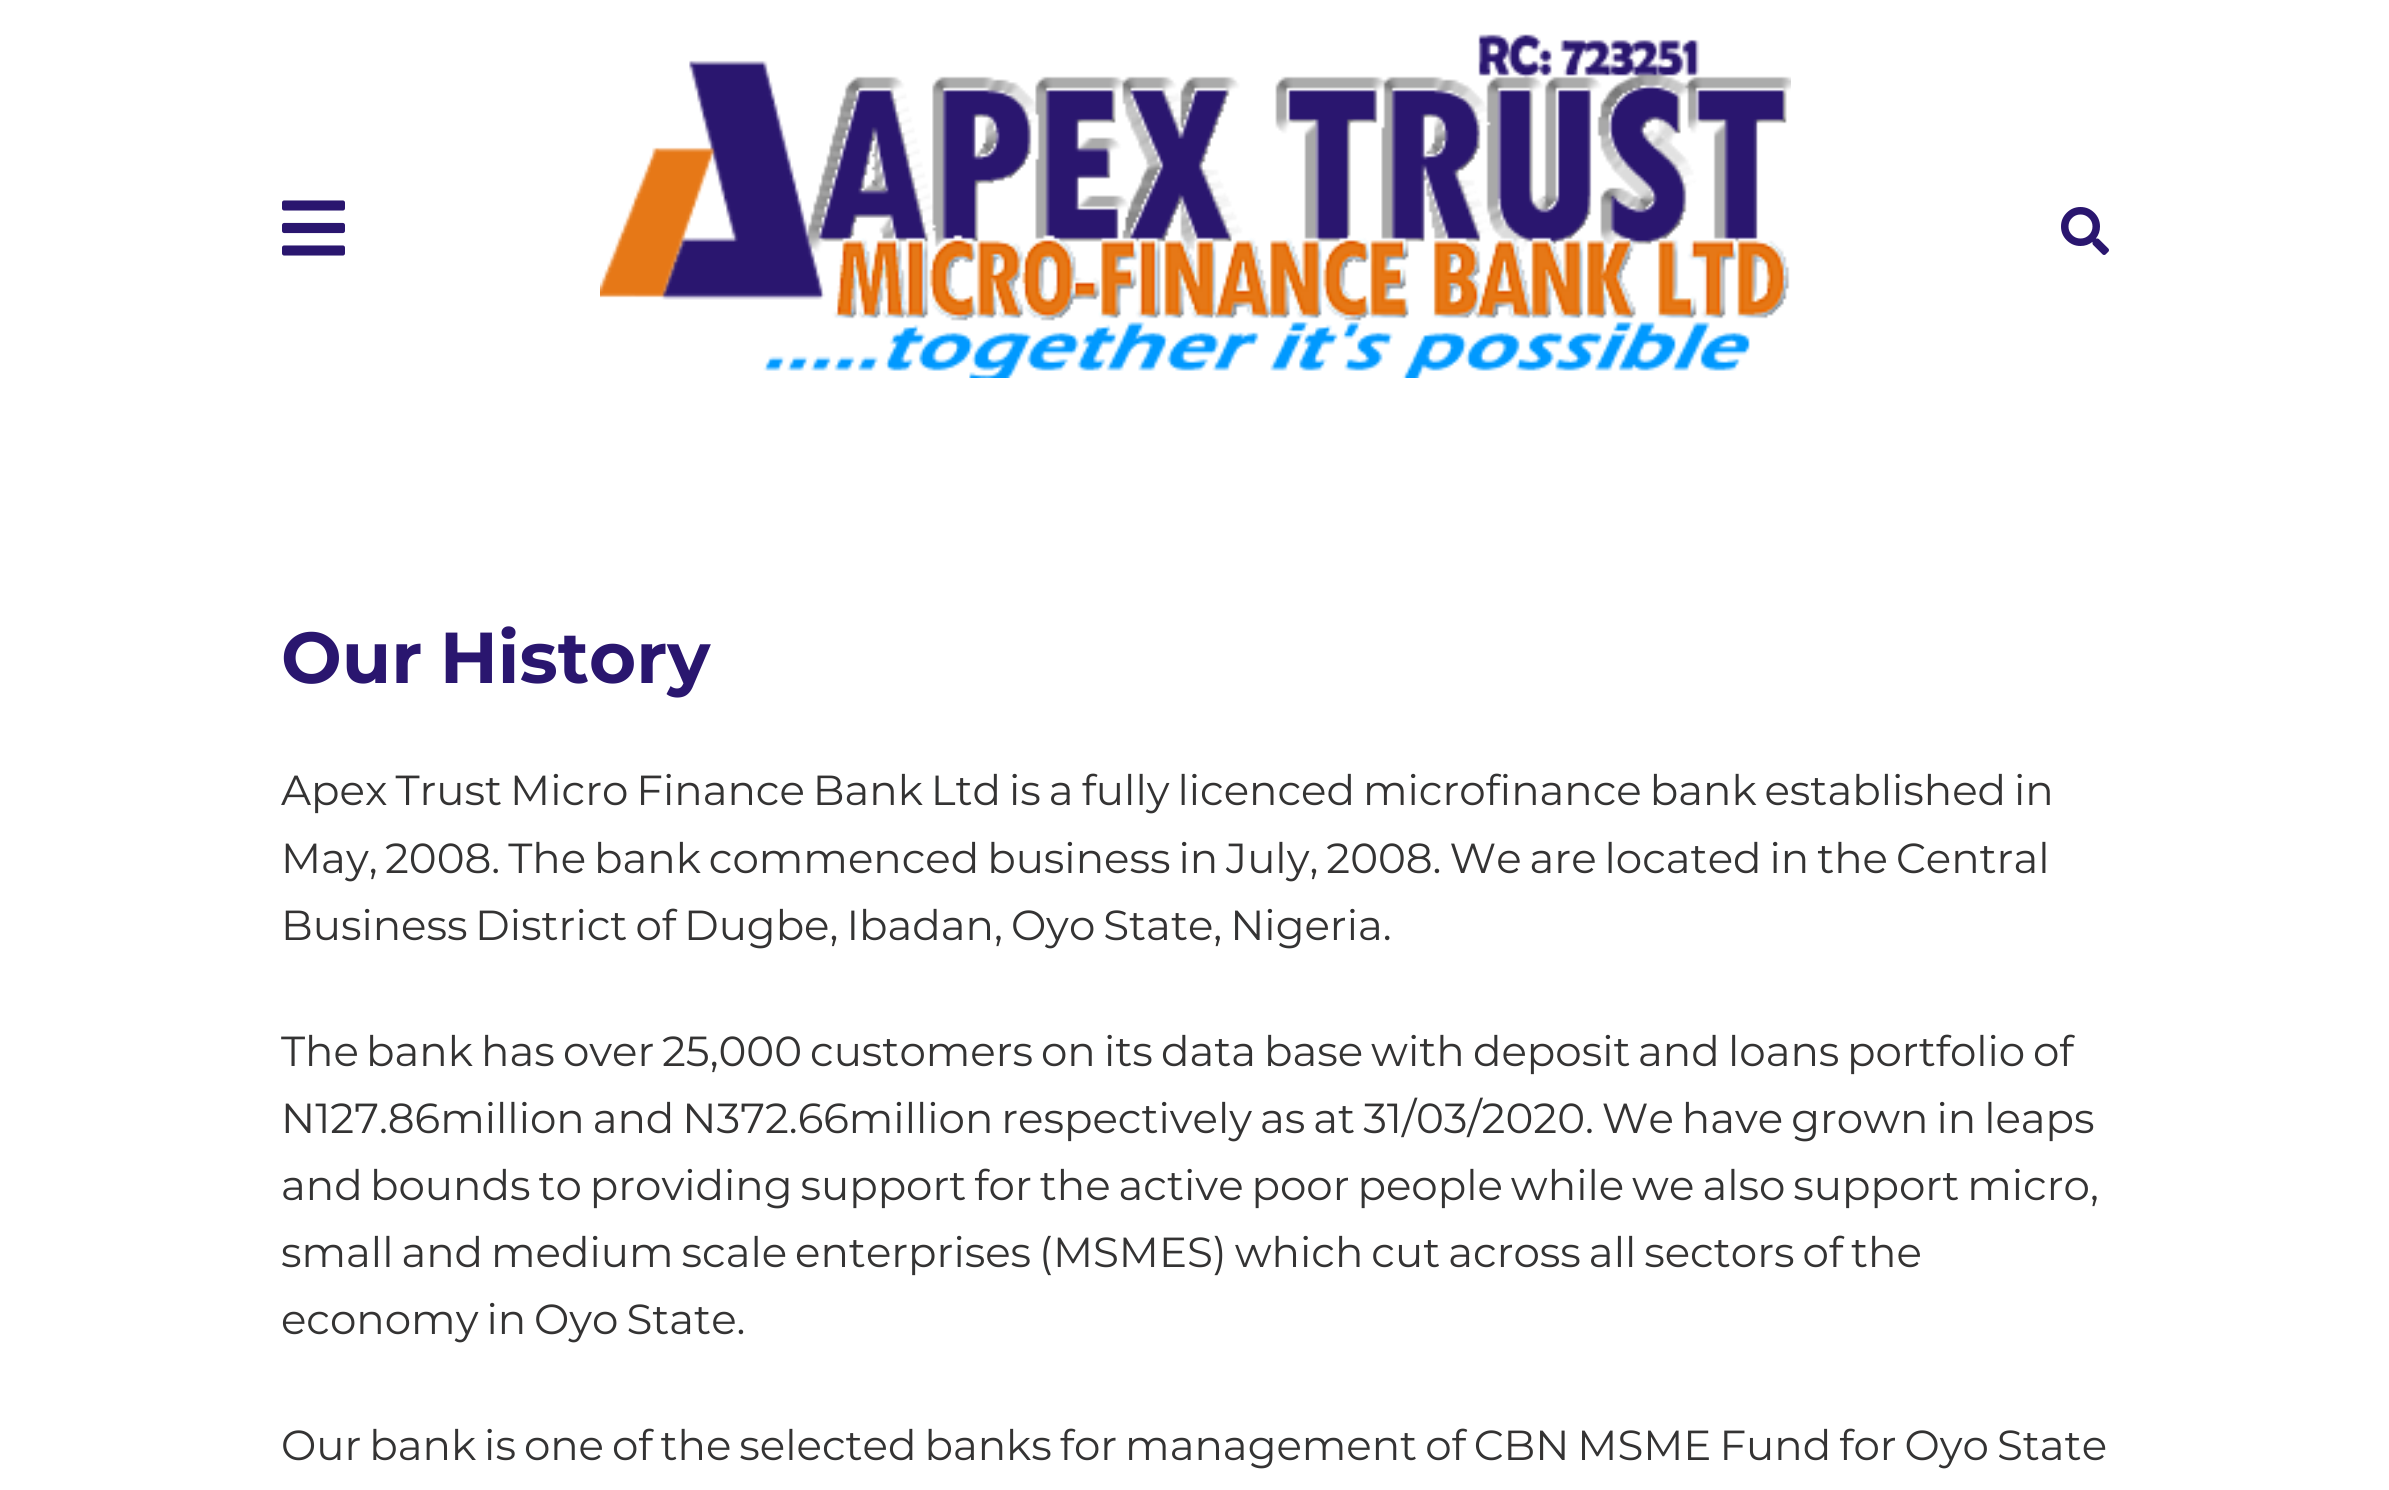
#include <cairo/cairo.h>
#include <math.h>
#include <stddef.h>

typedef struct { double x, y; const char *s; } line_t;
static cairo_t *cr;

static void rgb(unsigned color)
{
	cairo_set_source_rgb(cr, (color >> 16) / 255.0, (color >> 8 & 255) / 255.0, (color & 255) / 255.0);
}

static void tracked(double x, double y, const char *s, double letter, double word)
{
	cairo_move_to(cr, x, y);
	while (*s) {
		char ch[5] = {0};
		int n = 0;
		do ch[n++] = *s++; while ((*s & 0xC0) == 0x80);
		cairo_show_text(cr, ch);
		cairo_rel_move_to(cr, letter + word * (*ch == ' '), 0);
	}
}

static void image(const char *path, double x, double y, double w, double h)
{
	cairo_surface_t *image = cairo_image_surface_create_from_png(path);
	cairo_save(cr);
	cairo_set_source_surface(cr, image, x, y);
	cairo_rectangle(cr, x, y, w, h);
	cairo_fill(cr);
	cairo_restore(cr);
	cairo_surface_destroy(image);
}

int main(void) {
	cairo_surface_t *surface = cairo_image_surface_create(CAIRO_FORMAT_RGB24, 2389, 1490);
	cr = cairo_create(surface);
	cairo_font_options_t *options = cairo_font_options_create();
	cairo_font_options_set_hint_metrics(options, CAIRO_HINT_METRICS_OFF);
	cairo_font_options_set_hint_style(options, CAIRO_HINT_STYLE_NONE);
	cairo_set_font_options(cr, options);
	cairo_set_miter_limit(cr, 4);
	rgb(0xffffff);
	cairo_paint(cr);
	image("img/1.png", 282, 200, 63, 56);
	image("img/2.png", 600, 34, 1191, 344);
	image("img/3.png", 2061, 207, 48, 48);
	cairo_select_font_face(cr, "Montserrat", CAIRO_FONT_SLANT_NORMAL, CAIRO_FONT_WEIGHT_BOLD);
	cairo_set_font_size(cr, 72);
	rgb(0x2a166f);
	tracked(281, 683, "Our History", 0, -3);
	cairo_select_font_face(cr, "Montserrat", CAIRO_FONT_SLANT_NORMAL, CAIRO_FONT_WEIGHT_NORMAL);
	cairo_set_font_size(cr, 42);
	rgb(0x343333);
	tracked(281, 805, "Apex Trust Micro Finance Bank Ltd is a fully licenced microfinance bank established in", 0, -3);
	cairo_move_to(cr, 281, 873);
	cairo_show_text(cr, "May,");
	tracked(385, 873, "2008. The bank commenced business in July, 2008. We are located in the Central", 0, -3);
	cairo_move_to(cr, 281, 940);
	cairo_show_text(cr, "Business");
	tracked(475, 940, "District of Dugbe, Ibadan, Oyo State, Nigeria.", 0, -3);
	{
		static const line_t items[] = {
			{281, 1066, "The"},
			{366, 1066, "bank"},
			{481, 1066, "has"},
			{563, 1066, "over"},
			{662, 1066, "25,000"},
			{810, 1066, "customers"},
			{1041, 1066, "on"},
			{1104, 1066, "its"},
			{1161, 1066, "data"},
			{1264, 1066, "base"},
			{1371, 1066, "with"},
			{1473, 1066, "deposit"},
			{1638, 1066, "and"},
			{1728, 1066, "loans"},
			{1847, 1066, "portfolio"},
			{2033, 1066, "of"},
		};
		for (size_t i = 0; i < sizeof items / sizeof *items; i++) {
			cairo_move_to(cr, items[i].x, items[i].y);
			cairo_show_text(cr, items[i].s);
		}
	}
	tracked(281, 1133, "N127.86million and N372.66million respectively as at 31/03/2020. We have grown in leaps", 0, -3);
	cairo_move_to(cr, 281, 1200);
	cairo_show_text(cr, "and");
	{
		static const line_t items[] = {
			{370, 1200, "bounds to providing support for the active poor people while we also support micro,"},
			{281, 1267, "small and"},
			{491, 1267, "medium scale enterprises (MSMES) which cut across all sectors of the"},
			{281, 1334, "economy in Oyo State."},
			{281, 1460, "Our bank is one of the selected banks for management of CBN MSME Fund for Oyo State"},
		};
		for (size_t i = 0; i < sizeof items / sizeof *items; i++) {
			tracked(items[i].x, items[i].y, items[i].s, 0, -3);
		}
	}
	cairo_surface_write_to_png(surface, "page.png");
	cairo_font_options_destroy(options);
	cairo_destroy(cr);
	cairo_surface_destroy(surface);
	return 0;
}
